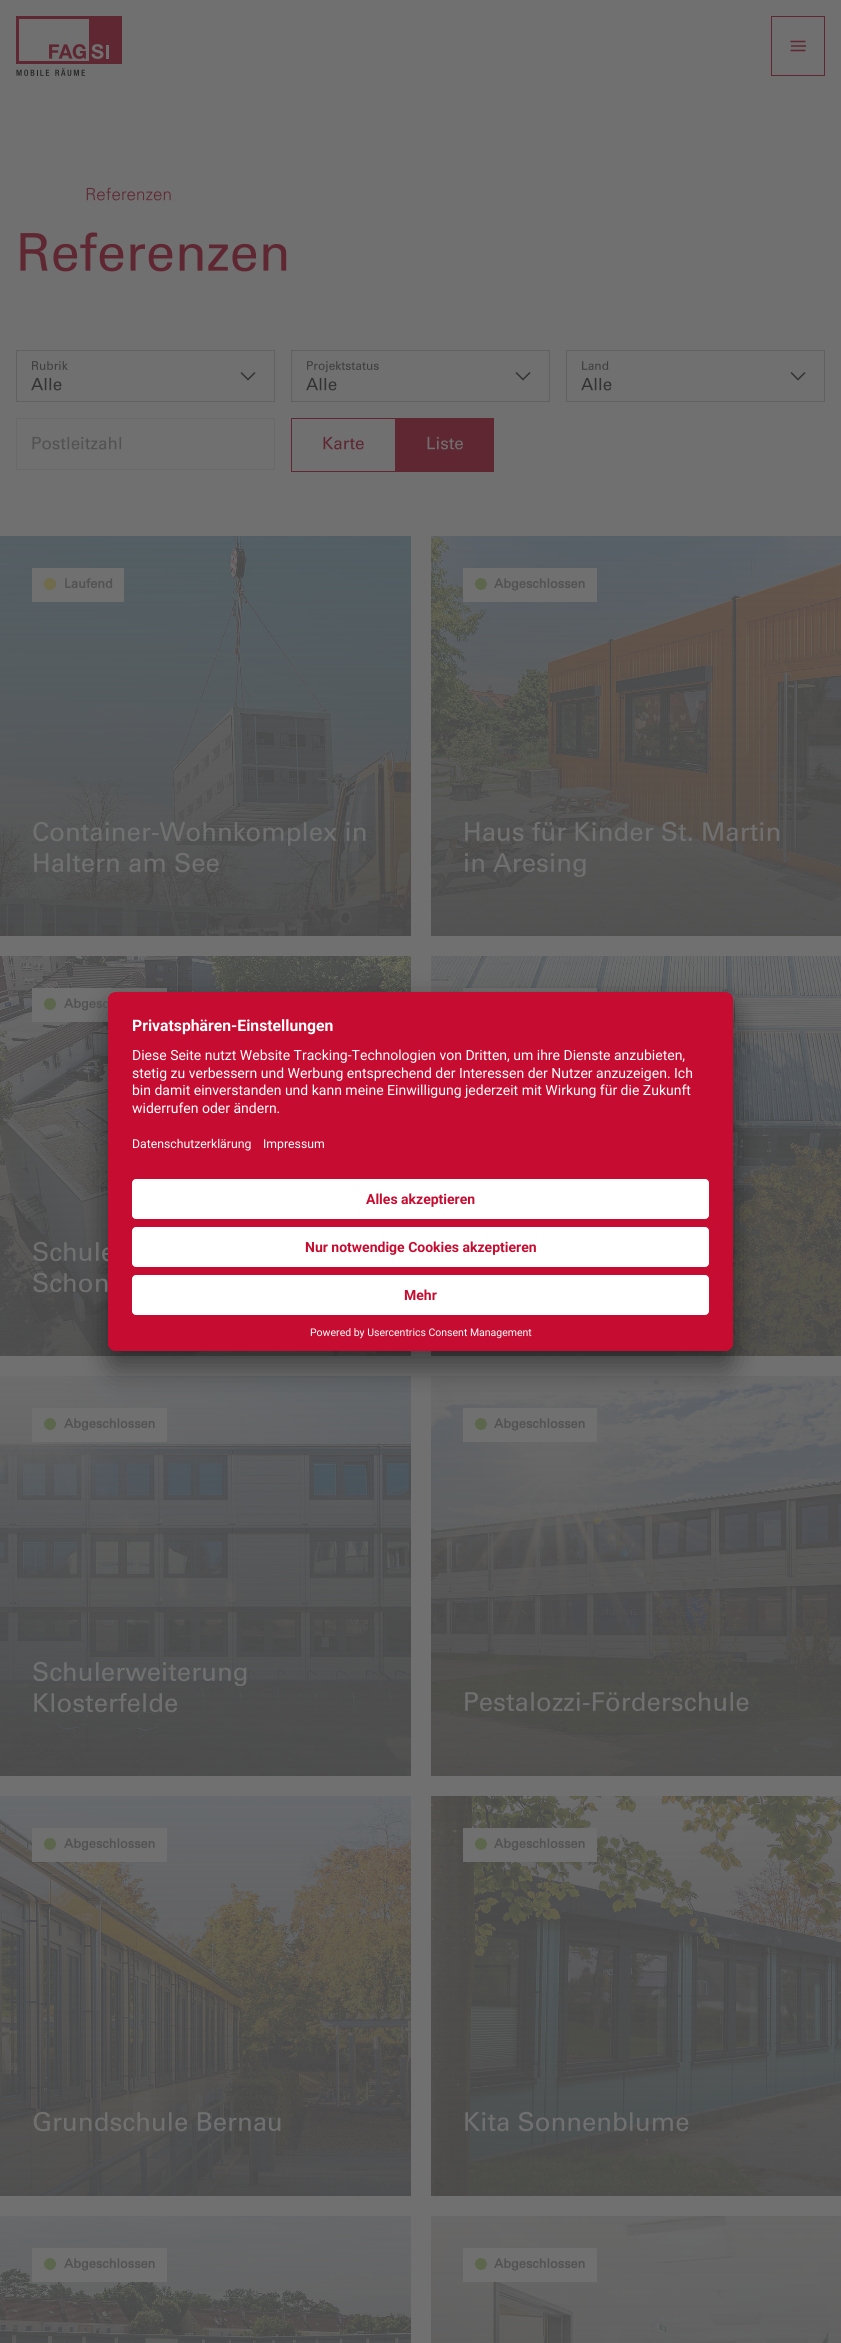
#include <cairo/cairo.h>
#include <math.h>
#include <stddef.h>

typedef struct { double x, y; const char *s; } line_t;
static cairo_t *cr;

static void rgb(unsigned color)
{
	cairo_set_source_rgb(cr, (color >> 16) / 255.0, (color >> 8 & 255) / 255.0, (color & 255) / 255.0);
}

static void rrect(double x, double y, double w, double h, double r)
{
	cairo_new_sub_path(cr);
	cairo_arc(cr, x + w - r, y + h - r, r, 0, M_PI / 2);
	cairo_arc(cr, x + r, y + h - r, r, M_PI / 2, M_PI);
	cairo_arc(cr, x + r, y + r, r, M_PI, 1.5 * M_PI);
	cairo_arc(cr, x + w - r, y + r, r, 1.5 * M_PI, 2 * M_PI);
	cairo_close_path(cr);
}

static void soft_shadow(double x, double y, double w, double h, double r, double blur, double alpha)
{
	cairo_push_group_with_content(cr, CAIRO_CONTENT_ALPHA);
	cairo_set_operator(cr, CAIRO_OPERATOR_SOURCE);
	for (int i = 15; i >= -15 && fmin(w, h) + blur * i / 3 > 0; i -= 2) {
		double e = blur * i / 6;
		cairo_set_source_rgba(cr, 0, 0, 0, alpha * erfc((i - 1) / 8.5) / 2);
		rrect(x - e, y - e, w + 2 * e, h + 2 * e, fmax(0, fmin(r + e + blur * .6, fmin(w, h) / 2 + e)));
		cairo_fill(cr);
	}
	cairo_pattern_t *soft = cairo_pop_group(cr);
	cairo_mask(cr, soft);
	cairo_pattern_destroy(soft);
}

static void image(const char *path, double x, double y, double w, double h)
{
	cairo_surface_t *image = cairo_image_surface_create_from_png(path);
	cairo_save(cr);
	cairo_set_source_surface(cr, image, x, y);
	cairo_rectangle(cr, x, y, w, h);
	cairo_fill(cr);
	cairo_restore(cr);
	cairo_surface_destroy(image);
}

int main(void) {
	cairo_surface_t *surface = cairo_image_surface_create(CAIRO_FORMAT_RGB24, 841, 2343);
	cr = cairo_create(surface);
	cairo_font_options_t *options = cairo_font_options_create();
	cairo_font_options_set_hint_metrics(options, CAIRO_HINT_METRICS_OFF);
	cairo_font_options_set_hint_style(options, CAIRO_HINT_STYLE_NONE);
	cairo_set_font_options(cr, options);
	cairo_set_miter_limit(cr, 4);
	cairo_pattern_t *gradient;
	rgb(0x707070);
	cairo_paint(cr);
	image("img/1.png", 16, 16, 106, 60);
	cairo_rectangle(cr, 771.5, 16.5, 53, 59);
	rgb(0x5f2732);
	cairo_set_line_width(cr, 1);
	cairo_stroke(cr);
	cairo_new_path(cr);
	cairo_move_to(cr, 790.5, 50.5);
	cairo_line_to(cr, 805.5, 50.5);
	cairo_set_line_width(cr, 1.5);
	cairo_set_line_join(cr, CAIRO_LINE_JOIN_ROUND);
	cairo_stroke(cr);
	rgb(0x633a42);
	cairo_rectangle(cr, 791, 45, 15, 2);
	cairo_fill(cr);
	cairo_new_path(cr);
	cairo_move_to(cr, 790.5, 41.5);
	cairo_line_to(cr, 805.5, 41.5);
	rgb(0x5f2732);
	cairo_stroke(cr);
	cairo_rectangle(cr, 16.5, 350.5, 258, 51);
	rgb(0x616161);
	cairo_set_line_width(cr, 1);
	cairo_set_line_join(cr, CAIRO_LINE_JOIN_MITER);
	cairo_stroke(cr);
	cairo_new_path(cr);
	cairo_move_to(cr, 255, 372.5);
	cairo_line_to(cr, 248, 379.5);
	cairo_line_to(cr, 241, 372.5);
	rgb(0x333333);
	cairo_set_line_width(cr, 1.5);
	cairo_stroke(cr);
	cairo_rectangle(cr, 291.5, 350.5, 258, 51);
	rgb(0x616161);
	cairo_set_line_width(cr, 1);
	cairo_stroke(cr);
	cairo_new_path(cr);
	cairo_move_to(cr, 530, 372.5);
	cairo_line_to(cr, 523, 379.5);
	cairo_line_to(cr, 516, 372.5);
	rgb(0x333333);
	cairo_set_line_width(cr, 1.5);
	cairo_stroke(cr);
	cairo_rectangle(cr, 566.5, 350.5, 258, 51);
	rgb(0x616161);
	cairo_set_line_width(cr, 1);
	cairo_stroke(cr);
	cairo_new_path(cr);
	cairo_move_to(cr, 805, 372.5);
	cairo_line_to(cr, 798, 379.5);
	cairo_line_to(cr, 791, 372.5);
	rgb(0x333333);
	cairo_set_line_width(cr, 1.5);
	cairo_stroke(cr);
	cairo_rectangle(cr, 16.5, 418.5, 258, 51);
	rgb(0x696969);
	cairo_set_line_width(cr, 1);
	cairo_stroke(cr);
	cairo_rectangle(cr, 291.5, 418.5, 104, 53);
	rgb(0x5f2732);
	cairo_stroke(cr);
	cairo_rectangle(cr, 396, 418, 98, 54);
	cairo_fill(cr);
	image("img/2.png", 0, 536, 411, 400);
	gradient = cairo_pattern_create_linear(205, 536, 206, 936);
	cairo_pattern_add_color_stop_rgba(gradient, 0, 0.29, 0.29, 0.29, 0.1);
	cairo_pattern_add_color_stop_rgba(gradient, 1, 0.29, 0.29, 0.29, 0.75);
	cairo_set_source(cr, gradient);
	cairo_pattern_destroy(gradient);
	cairo_rectangle(cr, 0, 536, 411, 400);
	cairo_fill(cr);
	rgb(0x707070);
	cairo_rectangle(cr, 32, 568, 92, 34);
	cairo_fill(cr);
	rgb(0x706b4a);
	cairo_arc(cr, 50, 584, 6, 0, 2 * M_PI);
	cairo_fill(cr);
	image("img/3.png", 431, 536, 410, 400);
	gradient = cairo_pattern_create_linear(636, 536, 636, 936);
	cairo_pattern_add_color_stop_rgba(gradient, 0, 0.29, 0.29, 0.29, 0.1);
	cairo_pattern_add_color_stop_rgba(gradient, 1, 0.29, 0.29, 0.29, 0.75);
	cairo_set_source(cr, gradient);
	cairo_pattern_destroy(gradient);
	cairo_rectangle(cr, 431, 536, 410, 400);
	cairo_fill(cr);
	rgb(0x707070);
	cairo_rectangle(cr, 463, 568, 134, 34);
	cairo_fill(cr);
	rgb(0x5b664c);
	cairo_arc(cr, 481, 584, 6, 0, 2 * M_PI);
	cairo_fill(cr);
	image("img/4.png", 0, 956, 411, 400);
	gradient = cairo_pattern_create_linear(205, 956, 206, 1356);
	cairo_pattern_add_color_stop_rgba(gradient, 0, 0.29, 0.29, 0.29, 0.1);
	cairo_pattern_add_color_stop_rgba(gradient, 1, 0.29, 0.29, 0.29, 0.75);
	cairo_set_source(cr, gradient);
	cairo_pattern_destroy(gradient);
	cairo_rectangle(cr, 0, 956, 411, 400);
	cairo_fill(cr);
	rgb(0x707070);
	cairo_rectangle(cr, 32, 988, 135, 34);
	cairo_fill(cr);
	rgb(0x5b664c);
	cairo_arc(cr, 50, 1004, 6, 0, 2 * M_PI);
	cairo_fill(cr);
	image("img/5.png", 431, 956, 410, 400);
	gradient = cairo_pattern_create_linear(636, 956, 636, 1356);
	cairo_pattern_add_color_stop_rgba(gradient, 0, 0.29, 0.29, 0.29, 0.1);
	cairo_pattern_add_color_stop_rgba(gradient, 1, 0.29, 0.29, 0.29, 0.75);
	cairo_set_source(cr, gradient);
	cairo_pattern_destroy(gradient);
	cairo_rectangle(cr, 431, 956, 410, 400);
	cairo_fill(cr);
	rgb(0x707070);
	cairo_rectangle(cr, 463, 988, 134, 4);
	cairo_fill(cr);
	image("img/6.png", 0, 1376, 411, 400);
	gradient = cairo_pattern_create_linear(205, 1376, 206, 1776);
	cairo_pattern_add_color_stop_rgba(gradient, 0, 0.29, 0.29, 0.29, 0.1);
	cairo_pattern_add_color_stop_rgba(gradient, 1, 0.29, 0.29, 0.29, 0.75);
	cairo_set_source(cr, gradient);
	cairo_pattern_destroy(gradient);
	cairo_rectangle(cr, 0, 1376, 411, 400);
	cairo_fill(cr);
	rgb(0x707070);
	cairo_rectangle(cr, 32, 1408, 135, 34);
	cairo_fill(cr);
	rgb(0x5b664c);
	cairo_arc(cr, 50, 1424, 6, 0, 2 * M_PI);
	cairo_fill(cr);
	image("img/7.png", 431, 1376, 410, 400);
	gradient = cairo_pattern_create_linear(636, 1376, 636, 1776);
	cairo_pattern_add_color_stop_rgba(gradient, 0, 0.29, 0.29, 0.29, 0.1);
	cairo_pattern_add_color_stop_rgba(gradient, 1, 0.29, 0.29, 0.29, 0.75);
	cairo_set_source(cr, gradient);
	cairo_pattern_destroy(gradient);
	cairo_rectangle(cr, 431, 1376, 410, 400);
	cairo_fill(cr);
	rgb(0x707070);
	cairo_rectangle(cr, 463, 1408, 134, 34);
	cairo_fill(cr);
	rgb(0x5b664c);
	cairo_arc(cr, 481, 1424, 6, 0, 2 * M_PI);
	cairo_fill(cr);
	image("img/8.png", 0, 1796, 411, 400);
	gradient = cairo_pattern_create_linear(205, 1796, 206, 2196);
	cairo_pattern_add_color_stop_rgba(gradient, 0, 0.29, 0.29, 0.29, 0.1);
	cairo_pattern_add_color_stop_rgba(gradient, 1, 0.29, 0.29, 0.29, 0.75);
	cairo_set_source(cr, gradient);
	cairo_pattern_destroy(gradient);
	cairo_rectangle(cr, 0, 1796, 411, 400);
	cairo_fill(cr);
	rgb(0x707070);
	cairo_rectangle(cr, 32, 1828, 135, 34);
	cairo_fill(cr);
	rgb(0x5b664c);
	cairo_arc(cr, 50, 1844, 6, 0, 2 * M_PI);
	cairo_fill(cr);
	image("img/9.png", 431, 1796, 410, 400);
	gradient = cairo_pattern_create_linear(636, 1796, 636, 2196);
	cairo_pattern_add_color_stop_rgba(gradient, 0, 0.29, 0.29, 0.29, 0.1);
	cairo_pattern_add_color_stop_rgba(gradient, 1, 0.29, 0.29, 0.29, 0.75);
	cairo_set_source(cr, gradient);
	cairo_pattern_destroy(gradient);
	cairo_rectangle(cr, 431, 1796, 410, 400);
	cairo_fill(cr);
	rgb(0x707070);
	cairo_rectangle(cr, 463, 1828, 134, 34);
	cairo_fill(cr);
	rgb(0x5b664c);
	cairo_arc(cr, 481, 1844, 6, 0, 2 * M_PI);
	cairo_fill(cr);
	image("img/10.png", 0, 2216, 411, 127);
	gradient = cairo_pattern_create_linear(205, 2216, 206, 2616);
	cairo_pattern_add_color_stop_rgba(gradient, 0, 0.29, 0.29, 0.29, 0.1);
	cairo_pattern_add_color_stop_rgba(gradient, 1, 0.29, 0.29, 0.29, 0.75);
	cairo_set_source(cr, gradient);
	cairo_pattern_destroy(gradient);
	cairo_rectangle(cr, 0, 2216, 411, 127);
	cairo_fill(cr);
	rgb(0x707070);
	cairo_rectangle(cr, 32, 2248, 135, 34);
	cairo_fill(cr);
	rgb(0x5b664c);
	cairo_arc(cr, 50, 2264, 6, 0, 2 * M_PI);
	cairo_fill(cr);
	image("img/11.png", 431, 2216, 410, 127);
	gradient = cairo_pattern_create_linear(636, 2216, 636, 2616);
	cairo_pattern_add_color_stop_rgba(gradient, 0, 0.29, 0.29, 0.29, 0.1);
	cairo_pattern_add_color_stop_rgba(gradient, 1, 0.29, 0.29, 0.29, 0.75);
	cairo_set_source(cr, gradient);
	cairo_pattern_destroy(gradient);
	cairo_rectangle(cr, 431, 2216, 410, 127);
	cairo_fill(cr);
	rgb(0x707070);
	cairo_rectangle(cr, 463, 2248, 134, 34);
	cairo_fill(cr);
	rgb(0x5b664c);
	cairo_arc(cr, 481, 2264, 6, 0, 2 * M_PI);
	cairo_fill(cr);
	rgb(0x000000);
	soft_shadow(108, 1012, 625, 359, 8, 14, 0.3);
	soft_shadow(108, 997, 625, 359, 8, 13, 0.22);
	cairo_select_font_face(cr, "Univers Light", CAIRO_FONT_SLANT_NORMAL, CAIRO_FONT_WEIGHT_NORMAL);
	cairo_set_font_size(cr, 17);
	rgb(0x5f2732);
	cairo_move_to(cr, 85, 199);
	cairo_show_text(cr, "Referenzen");
	cairo_select_font_face(cr, "Univers", CAIRO_FONT_SLANT_NORMAL, CAIRO_FONT_WEIGHT_NORMAL);
	cairo_set_font_size(cr, 52);
	cairo_move_to(cr, 16, 267);
	cairo_show_text(cr, "Referenzen");
	cairo_set_font_size(cr, 12);
	rgb(0x3e3e3e);
	cairo_move_to(cr, 31, 369);
	cairo_show_text(cr, "Rubrik");
	cairo_set_font_size(cr, 17);
	rgb(0x333333);
	cairo_move_to(cr, 31, 389);
	cairo_show_text(cr, "Alle");
	cairo_set_font_size(cr, 12);
	rgb(0x3e3e3e);
	cairo_move_to(cr, 306, 369);
	cairo_show_text(cr, "Projektstatus");
	cairo_set_font_size(cr, 17);
	rgb(0x333333);
	cairo_move_to(cr, 306, 389);
	cairo_show_text(cr, "Alle");
	cairo_set_font_size(cr, 12);
	rgb(0x3e3e3e);
	cairo_move_to(cr, 581, 369);
	cairo_show_text(cr, "Land");
	cairo_set_font_size(cr, 17);
	rgb(0x333333);
	cairo_move_to(cr, 581, 389);
	cairo_show_text(cr, "Alle");
	rgb(0x525252);
	cairo_move_to(cr, 31, 448);
	cairo_show_text(cr, "Postleitzahl");
	rgb(0x5f2732);
	cairo_move_to(cr, 322, 448);
	cairo_show_text(cr, "Karte");
	rgb(0x707070);
	cairo_move_to(cr, 426, 448);
	cairo_show_text(cr, "Liste");
	cairo_select_font_face(cr, "Univers", CAIRO_FONT_SLANT_NORMAL, CAIRO_FONT_WEIGHT_BOLD);
	cairo_set_font_size(cr, 12.75);
	rgb(0x525252);
	cairo_move_to(cr, 64, 587);
	cairo_show_text(cr, "Laufend");
	cairo_select_font_face(cr, "Univers", CAIRO_FONT_SLANT_NORMAL, CAIRO_FONT_WEIGHT_NORMAL);
	cairo_set_font_size(cr, 25.8);
	rgb(0x707070);
	cairo_move_to(cr, 32, 839);
	cairo_show_text(cr, "Container-Wohnkomplex in");
	cairo_move_to(cr, 32, 870);
	cairo_show_text(cr, "Haltern am See");
	cairo_select_font_face(cr, "Univers", CAIRO_FONT_SLANT_NORMAL, CAIRO_FONT_WEIGHT_BOLD);
	cairo_set_font_size(cr, 12.75);
	rgb(0x525252);
	cairo_move_to(cr, 494, 587);
	cairo_show_text(cr, "Abgeschlossen");
	cairo_select_font_face(cr, "Univers", CAIRO_FONT_SLANT_NORMAL, CAIRO_FONT_WEIGHT_NORMAL);
	cairo_set_font_size(cr, 25.8);
	rgb(0x707070);
	cairo_move_to(cr, 463, 839);
	cairo_show_text(cr, "Haus für Kinder St. Martin");
	cairo_move_to(cr, 463, 870);
	cairo_show_text(cr, "in Aresing");
	cairo_select_font_face(cr, "Univers", CAIRO_FONT_SLANT_NORMAL, CAIRO_FONT_WEIGHT_BOLD);
	cairo_set_font_size(cr, 12.75);
	rgb(0x525252);
	cairo_move_to(cr, 64, 1007);
	cairo_show_text(cr, "Abgesc");
	cairo_select_font_face(cr, "Univers", CAIRO_FONT_SLANT_NORMAL, CAIRO_FONT_WEIGHT_NORMAL);
	cairo_set_font_size(cr, 25.8);
	rgb(0x707070);
	cairo_move_to(cr, 32, 1259);
	cairo_show_text(cr, "Schule");
	cairo_move_to(cr, 32, 1290);
	cairo_show_text(cr, "Schon");
	cairo_select_font_face(cr, "Univers", CAIRO_FONT_SLANT_NORMAL, CAIRO_FONT_WEIGHT_BOLD);
	cairo_set_font_size(cr, 12.75);
	rgb(0x525252);
	cairo_move_to(cr, 64, 1427);
	cairo_show_text(cr, "Abgeschlossen");
	cairo_select_font_face(cr, "Univers", CAIRO_FONT_SLANT_NORMAL, CAIRO_FONT_WEIGHT_NORMAL);
	cairo_set_font_size(cr, 25.8);
	rgb(0x707070);
	cairo_move_to(cr, 32, 1679);
	cairo_show_text(cr, "Schulerweiterung");
	cairo_move_to(cr, 32, 1710);
	cairo_show_text(cr, "Klosterfelde");
	cairo_select_font_face(cr, "Univers", CAIRO_FONT_SLANT_NORMAL, CAIRO_FONT_WEIGHT_BOLD);
	cairo_set_font_size(cr, 12.75);
	rgb(0x525252);
	cairo_move_to(cr, 494, 1427);
	cairo_show_text(cr, "Abgeschlossen");
	cairo_select_font_face(cr, "Univers", CAIRO_FONT_SLANT_NORMAL, CAIRO_FONT_WEIGHT_NORMAL);
	cairo_set_font_size(cr, 25.8);
	rgb(0x707070);
	cairo_move_to(cr, 463, 1709);
	cairo_show_text(cr, "Pestalozzi-Förderschule");
	cairo_select_font_face(cr, "Univers", CAIRO_FONT_SLANT_NORMAL, CAIRO_FONT_WEIGHT_BOLD);
	cairo_set_font_size(cr, 12.75);
	rgb(0x525252);
	cairo_move_to(cr, 64, 1847);
	cairo_show_text(cr, "Abgeschlossen");
	cairo_select_font_face(cr, "Univers", CAIRO_FONT_SLANT_NORMAL, CAIRO_FONT_WEIGHT_NORMAL);
	cairo_set_font_size(cr, 25.8);
	rgb(0x707070);
	cairo_move_to(cr, 32, 2129);
	cairo_show_text(cr, "Grundschule Bernau");
	cairo_select_font_face(cr, "Univers", CAIRO_FONT_SLANT_NORMAL, CAIRO_FONT_WEIGHT_BOLD);
	cairo_set_font_size(cr, 12.75);
	rgb(0x525252);
	cairo_move_to(cr, 494, 1847);
	cairo_show_text(cr, "Abgeschlossen");
	cairo_select_font_face(cr, "Univers", CAIRO_FONT_SLANT_NORMAL, CAIRO_FONT_WEIGHT_NORMAL);
	cairo_set_font_size(cr, 25.8);
	rgb(0x707070);
	cairo_move_to(cr, 463, 2129);
	cairo_show_text(cr, "Kita Sonnenblume");
	cairo_select_font_face(cr, "Univers", CAIRO_FONT_SLANT_NORMAL, CAIRO_FONT_WEIGHT_BOLD);
	cairo_set_font_size(cr, 12.75);
	rgb(0x525252);
	cairo_move_to(cr, 64, 2267);
	cairo_show_text(cr, "Abgeschlossen");
	cairo_move_to(cr, 494, 2267);
	cairo_show_text(cr, "Abgeschlossen");
	rgb(0xc60c30);
	rrect(108, 992, 625, 359, 8);
	cairo_fill(cr);
	cairo_save(cr);
	rrect(108, 992, 625, 359, 8);
	cairo_clip(cr);
	cairo_new_path(cr);
	cairo_move_to(cr, 116, 992);
	cairo_line_to(cr, 725, 992);
	cairo_curve_to(cr, 729.5, 992, 733, 995.5, 733, 1000);
	cairo_line_to(cr, 733, 1167);
	cairo_line_to(cr, 108, 1167);
	cairo_line_to(cr, 108, 1000);
	cairo_curve_to(cr, 108, 995.5, 111.5, 992, 116, 992);
	cairo_close_path(cr);
	cairo_clip(cr);
	cairo_rectangle(cr, 108, 993, 625, 174);
	cairo_fill(cr);
	cairo_restore(cr);
	cairo_select_font_face(cr, "Roboto", CAIRO_FONT_SLANT_NORMAL, CAIRO_FONT_WEIGHT_BOLD);
	cairo_set_font_size(cr, 15.75);
	rgb(0xffffff);
	cairo_move_to(cr, 132, 1031);
	cairo_show_text(cr, "Privatsphären-Einstellungen");
	cairo_select_font_face(cr, "Roboto", CAIRO_FONT_SLANT_NORMAL, CAIRO_FONT_WEIGHT_NORMAL);
	cairo_set_font_size(cr, 14);
	{
		static const line_t items[] = {
			{132, 1060, "Diese Seite nutzt Website Tracking-Technologien von Dritten, um ihre Dienste anzubieten,"},
			{132, 1078, "stetig zu verbessern und Werbung entsprechend der Interessen der Nutzer anzuzeigen. Ich"},
			{132, 1095, "bin damit einverstanden und kann meine Einwilligung jederzeit mit Wirkung für die Zukunft"},
			{132, 1113, "widerrufen oder ändern."},
		};
		for (size_t i = 0; i < sizeof items / sizeof *items; i++) {
			cairo_move_to(cr, items[i].x, items[i].y);
			cairo_show_text(cr, items[i].s);
		}
	}
	cairo_set_font_size(cr, 12.25);
	cairo_move_to(cr, 132, 1148);
	cairo_show_text(cr, "Datenschutzerklärung");
	cairo_move_to(cr, 263, 1148);
	cairo_show_text(cr, "Impressum");
	rgb(0xc60c30);
	cairo_new_path(cr);
	cairo_move_to(cr, 108, 1167);
	cairo_line_to(cr, 733, 1167);
	cairo_line_to(cr, 733, 1343);
	cairo_curve_to(cr, 733, 1347.5, 729.5, 1351, 725, 1351);
	cairo_line_to(cr, 116, 1351);
	cairo_curve_to(cr, 111.5, 1351, 108, 1347.5, 108, 1343);
	cairo_close_path(cr);
	cairo_fill(cr);
	rgb(0xffffff);
	rrect(132, 1179, 577, 40, 4);
	cairo_fill(cr);
	cairo_select_font_face(cr, "Roboto", CAIRO_FONT_SLANT_NORMAL, CAIRO_FONT_WEIGHT_BOLD);
	cairo_set_font_size(cr, 14);
	rgb(0xc60c30);
	cairo_move_to(cr, 366, 1204);
	cairo_show_text(cr, "Alles akzeptieren");
	rgb(0xffffff);
	rrect(132, 1227, 577, 40, 4);
	cairo_fill(cr);
	rgb(0xc60c30);
	cairo_move_to(cr, 305, 1252);
	cairo_show_text(cr, "Nur notwendige Cookies akzeptieren");
	rgb(0xffffff);
	rrect(132, 1275, 577, 40, 4);
	cairo_fill(cr);
	rgb(0xc60c30);
	cairo_move_to(cr, 404, 1300);
	cairo_show_text(cr, "Mehr");
	cairo_select_font_face(cr, "Roboto", CAIRO_FONT_SLANT_NORMAL, CAIRO_FONT_WEIGHT_NORMAL);
	cairo_set_font_size(cr, 10.5);
	rgb(0xffffff);
	cairo_move_to(cr, 310, 1336);
	cairo_show_text(cr, "Powered by Usercentrics Consent Management");
	cairo_surface_write_to_png(surface, "page.png");
	cairo_font_options_destroy(options);
	cairo_destroy(cr);
	cairo_surface_destroy(surface);
	return 0;
}
